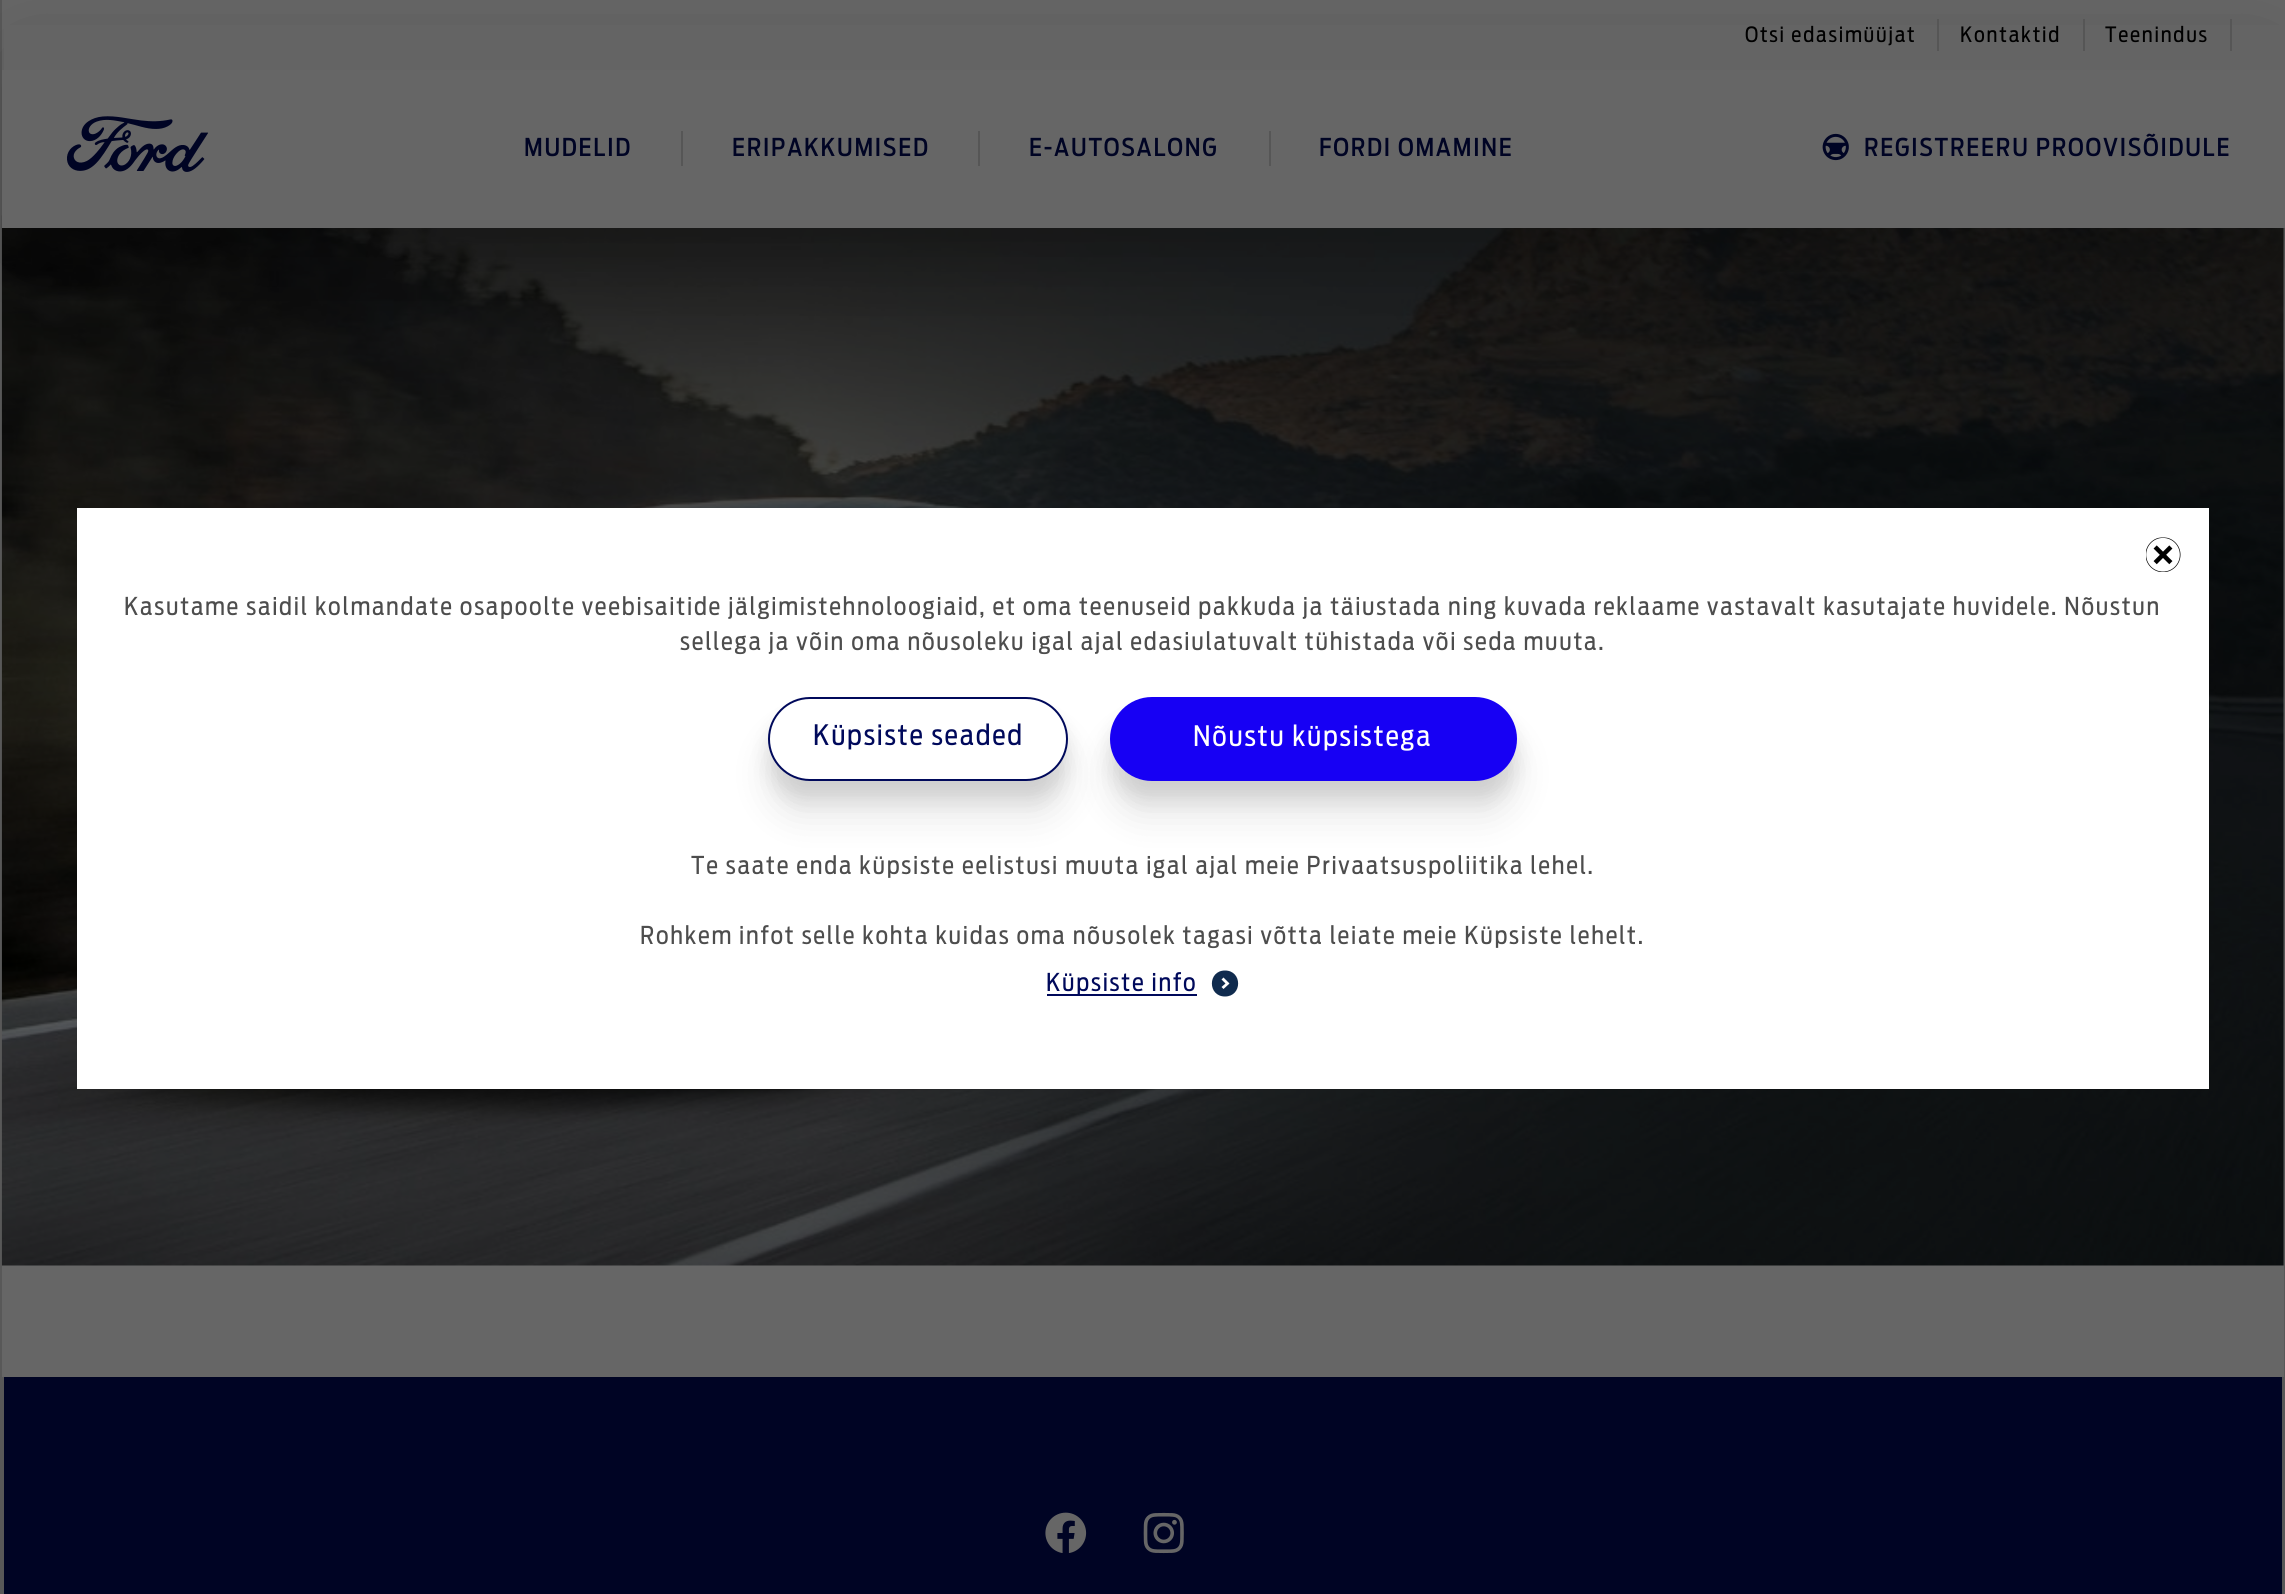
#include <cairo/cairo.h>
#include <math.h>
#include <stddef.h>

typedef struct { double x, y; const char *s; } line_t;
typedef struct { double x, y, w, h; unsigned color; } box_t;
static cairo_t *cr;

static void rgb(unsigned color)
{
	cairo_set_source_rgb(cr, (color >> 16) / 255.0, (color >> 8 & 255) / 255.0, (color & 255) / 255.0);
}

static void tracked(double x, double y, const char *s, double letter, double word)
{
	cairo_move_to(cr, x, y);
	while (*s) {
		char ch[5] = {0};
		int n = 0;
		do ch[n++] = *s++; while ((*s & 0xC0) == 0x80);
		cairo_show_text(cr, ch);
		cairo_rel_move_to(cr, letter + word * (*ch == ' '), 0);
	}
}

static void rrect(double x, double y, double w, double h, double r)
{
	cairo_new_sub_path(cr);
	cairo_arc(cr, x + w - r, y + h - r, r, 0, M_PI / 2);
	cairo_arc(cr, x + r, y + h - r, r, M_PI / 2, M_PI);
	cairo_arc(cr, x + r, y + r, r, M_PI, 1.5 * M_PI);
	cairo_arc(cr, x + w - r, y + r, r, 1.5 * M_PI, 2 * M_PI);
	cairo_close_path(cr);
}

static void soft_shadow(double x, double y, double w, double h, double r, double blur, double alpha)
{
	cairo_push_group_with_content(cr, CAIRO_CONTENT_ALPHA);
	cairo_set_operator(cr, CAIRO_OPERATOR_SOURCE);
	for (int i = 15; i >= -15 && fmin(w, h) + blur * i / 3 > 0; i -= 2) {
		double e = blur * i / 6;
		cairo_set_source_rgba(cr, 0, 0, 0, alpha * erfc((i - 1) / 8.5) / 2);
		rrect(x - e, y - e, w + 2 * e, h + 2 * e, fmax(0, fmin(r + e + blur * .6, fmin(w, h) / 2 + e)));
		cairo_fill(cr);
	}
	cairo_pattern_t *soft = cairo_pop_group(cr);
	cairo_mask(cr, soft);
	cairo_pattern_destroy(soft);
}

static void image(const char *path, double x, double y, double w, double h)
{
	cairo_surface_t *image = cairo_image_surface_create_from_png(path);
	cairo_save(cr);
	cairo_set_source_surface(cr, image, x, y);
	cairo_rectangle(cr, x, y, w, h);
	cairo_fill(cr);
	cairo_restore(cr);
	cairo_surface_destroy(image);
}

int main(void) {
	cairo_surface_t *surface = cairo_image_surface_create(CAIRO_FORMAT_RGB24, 2285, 1594);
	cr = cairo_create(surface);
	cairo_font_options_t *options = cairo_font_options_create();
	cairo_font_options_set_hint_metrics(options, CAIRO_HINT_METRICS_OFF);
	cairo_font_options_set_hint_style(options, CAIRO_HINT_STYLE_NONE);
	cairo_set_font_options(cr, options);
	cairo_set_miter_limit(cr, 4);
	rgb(0x666666);
	cairo_paint(cr);
	rgb(0x585858);
	cairo_rectangle(cr, 2284, 228, 1, 1366);
	cairo_fill(cr);
	cairo_rectangle(cr, 0, 0, 2, 1594);
	cairo_fill(cr);
	image("img/3.png", 1, 215, 2283, 1051);
	rgb(0x000000);
	soft_shadow(23, 65, 2243, 185, 0, 44, 0.25);
	{
		static const box_t items[] = {
			{2, 70, 2283, 158, 0x666666},
			{4, 25, 2281, 45, 0x646464},
			{1937, 19, 2, 32, 0x565656},
			{2083, 19, 2, 32, 0x565656},
			{2230, 19, 2, 32, 0x565656},
		};
		for (size_t i = 0; i < sizeof items / sizeof *items; i++) {
			rgb(items[i].color);
			cairo_rectangle(cr, items[i].x, items[i].y, items[i].w, items[i].h);
			cairo_fill(cr);
		}
	}
	image("img/1.png", 67, 116, 142, 56);
	{
		static const box_t items[] = {
			{681, 131, 2, 35, 0x565656},
			{978, 131, 2, 35, 0x565656},
			{1269, 131, 2, 35, 0x565656},
		};
		for (size_t i = 0; i < sizeof items / sizeof *items; i++) {
			rgb(items[i].color);
			cairo_rectangle(cr, items[i].x, items[i].y, items[i].w, items[i].h);
			cairo_fill(cr);
		}
	}
	image("img/2.png", 1822, 133, 27, 28);
	{
		static const box_t items[] = {
			{2282, 1377, 2, 217, 0x585858},
			{2, 1377, 2, 217, 0x585858},
			{4, 1377, 2278, 217, 0x000424},
		};
		for (size_t i = 0; i < sizeof items / sizeof *items; i++) {
			rgb(items[i].color);
			cairo_rectangle(cr, items[i].x, items[i].y, items[i].w, items[i].h);
			cairo_fill(cr);
		}
	}
	image("img/4.png", 1045, 1512, 42, 41);
	image("img/5.png", 1143, 1512, 41, 42);
	rgb(0xffffff);
	cairo_rectangle(cr, 77, 508, 2132, 581);
	cairo_fill(cr);
	image("img/6.png", 2146, 537, 35, 35);
	rgb(0x000000);
	soft_shadow(768, 714, 300, 84, 42, 9, 0.1);
	soft_shadow(768, 732, 300, 84, 42, 17.5, 0.1);
	rgb(0xffffff);
	rrect(769, 698, 298, 82, 41);
	cairo_fill_preserve(cr);
	rgb(0x00095b);
	cairo_stroke(cr);
	rgb(0x000000);
	soft_shadow(1110, 714, 407, 84, 42, 9, 0.1);
	soft_shadow(1110, 732, 407, 84, 42, 17.5, 0.1);
	rgb(0x1700f4);
	rrect(1110, 697, 407, 84, 42);
	cairo_fill(cr);
	rgb(0x00095b);
	cairo_rectangle(cr, 1047, 994, 150, 2);
	cairo_fill(cr);
	rgb(0x102b4e);
	cairo_new_path(cr);
	cairo_move_to(cr, 1225, 996.5);
	cairo_curve_to(cr, 1207.5, 996.5, 1207.5, 970.5, 1225, 970.5);
	cairo_curve_to(cr, 1242.5, 970.5, 1242.5, 996.5, 1225, 996.5);
	cairo_close_path(cr);
	cairo_move_to(cr, 1223.5, 977.5);
	cairo_line_to(cr, 1221.5, 979.5);
	cairo_line_to(cr, 1225.5, 983.5);
	cairo_line_to(cr, 1221.5, 987);
	cairo_line_to(cr, 1223.5, 989);
	cairo_line_to(cr, 1229.5, 983.5);
	cairo_close_path(cr);
	cairo_fill(cr);
	cairo_select_font_face(cr, "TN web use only", CAIRO_FONT_SLANT_NORMAL, CAIRO_FONT_WEIGHT_NORMAL);
	cairo_set_font_size(cr, 21);
	rgb(0x000000);
	{
		static const line_t items[] = {
			{1745, 42, "Otsi edasimüüjat"},
			{1960, 42, "Kontaktid"},
			{2105, 42, "Teenindus"},
		};
		for (size_t i = 0; i < sizeof items / sizeof *items; i++) {
			tracked(items[i].x, items[i].y, items[i].s, 1.75, 0);
		}
	}
	cairo_select_font_face(cr, "TN web use only Medium", CAIRO_FONT_SLANT_NORMAL, CAIRO_FONT_WEIGHT_NORMAL);
	cairo_set_font_size(cr, 24.5);
	rgb(0x000424);
	{
		static const line_t items[] = {
			{524, 156, "MUDELID"},
			{732, 156, "ERIPAKKUMISED"},
			{1029, 156, "E-AUTOSALONG"},
			{1319, 156, "FORDI OMAMINE"},
			{1864, 156, "REGISTREERU PROOVISÕIDULE"},
		};
		for (size_t i = 0; i < sizeof items / sizeof *items; i++) {
			tracked(items[i].x, items[i].y, items[i].s, 1.75, 0);
		}
	}
	cairo_select_font_face(cr, "TN web use only", CAIRO_FONT_SLANT_NORMAL, CAIRO_FONT_WEIGHT_NORMAL);
	rgb(0x4d4d4d);
	tracked(124, 615, "Kasutame saidil kolmandate osapoolte veebisaitide jälgimistehnoloogiaid, et oma teenuseid pakkuda ja täiustada ning kuvada reklaame vastavalt kasutajate huvidele. Nõustun", 1.75, 0);
	tracked(680, 650, "sellega ja võin oma nõusoleku igal ajal edasiulatuvalt tühistada või seda muuta.", 1.75, 0);
	cairo_set_font_size(cr, 28);
	rgb(0x00095b);
	tracked(813, 745, "Küpsiste seaded", 1.75, 0);
	rgb(0xffffff);
	tracked(1193, 746, "Nõustu küpsistega", 1.75, 0);
	cairo_set_font_size(cr, 24.5);
	rgb(0x4d4d4d);
	tracked(691, 874, "Te saate enda küpsiste eelistusi muuta igal ajal meie Privaatsuspoliitika lehel.", 1.75, 0);
	tracked(640, 944, "Rohkem infot selle kohta kuidas oma nõusolek tagasi võtta leiate meie Küpsiste lehelt.", 1.75, 0);
	rgb(0x00095b);
	tracked(1046, 991, "Küpsiste info", 1.75, 0);
	cairo_surface_write_to_png(surface, "page.png");
	cairo_font_options_destroy(options);
	cairo_destroy(cr);
	cairo_surface_destroy(surface);
	return 0;
}
